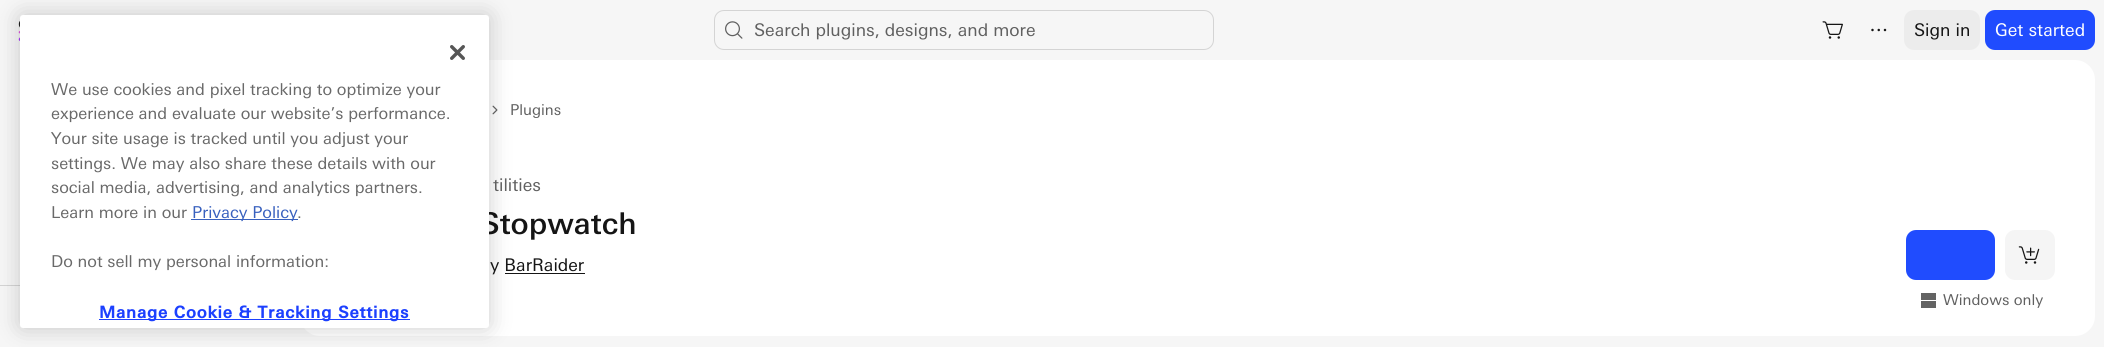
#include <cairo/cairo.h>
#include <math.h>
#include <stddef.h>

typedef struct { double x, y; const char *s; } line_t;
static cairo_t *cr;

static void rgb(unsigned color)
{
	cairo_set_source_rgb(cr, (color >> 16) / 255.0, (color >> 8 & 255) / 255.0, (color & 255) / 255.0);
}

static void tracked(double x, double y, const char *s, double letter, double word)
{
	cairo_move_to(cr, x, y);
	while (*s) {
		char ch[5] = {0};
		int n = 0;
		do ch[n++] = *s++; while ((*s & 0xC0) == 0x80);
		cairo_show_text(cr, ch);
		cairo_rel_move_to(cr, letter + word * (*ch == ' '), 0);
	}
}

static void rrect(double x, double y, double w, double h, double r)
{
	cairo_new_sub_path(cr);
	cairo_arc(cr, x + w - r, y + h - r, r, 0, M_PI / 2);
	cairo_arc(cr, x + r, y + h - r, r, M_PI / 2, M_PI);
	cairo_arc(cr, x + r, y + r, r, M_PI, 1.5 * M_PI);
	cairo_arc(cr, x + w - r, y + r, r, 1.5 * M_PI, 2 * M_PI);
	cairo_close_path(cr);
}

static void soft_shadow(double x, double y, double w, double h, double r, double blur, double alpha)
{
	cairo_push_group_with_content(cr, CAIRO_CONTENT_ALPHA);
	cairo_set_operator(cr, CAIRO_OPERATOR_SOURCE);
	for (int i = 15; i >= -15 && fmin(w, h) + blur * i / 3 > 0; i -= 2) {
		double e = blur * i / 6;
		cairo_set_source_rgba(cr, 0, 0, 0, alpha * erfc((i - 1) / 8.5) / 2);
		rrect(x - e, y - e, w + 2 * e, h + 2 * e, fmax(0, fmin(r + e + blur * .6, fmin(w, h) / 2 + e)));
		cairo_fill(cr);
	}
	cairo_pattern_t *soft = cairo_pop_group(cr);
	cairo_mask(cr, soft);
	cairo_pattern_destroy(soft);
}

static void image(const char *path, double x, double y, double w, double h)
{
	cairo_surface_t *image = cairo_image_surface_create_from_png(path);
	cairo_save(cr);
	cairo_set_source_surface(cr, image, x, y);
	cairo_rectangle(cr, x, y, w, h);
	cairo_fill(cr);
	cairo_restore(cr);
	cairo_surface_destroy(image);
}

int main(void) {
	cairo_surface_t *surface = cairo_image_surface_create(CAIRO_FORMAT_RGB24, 2104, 347);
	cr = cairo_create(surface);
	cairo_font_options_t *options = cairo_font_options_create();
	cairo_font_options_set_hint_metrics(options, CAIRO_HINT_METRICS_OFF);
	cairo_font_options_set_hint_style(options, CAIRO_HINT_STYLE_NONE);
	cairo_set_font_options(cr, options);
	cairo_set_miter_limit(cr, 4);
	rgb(0xf6f6f6);
	cairo_paint(cr);
	image("img/2.png", 18, 21, 2, 20);
	rgb(0xd4d4d4);
	cairo_rectangle(cr, 0, 285, 20, 1);
	cairo_fill(cr);
	rgb(0xffffff);
	rrect(300, 60, 1795, 276, 20);
	cairo_fill(cr);
	image("img/6.png", 492, 105, 6, 10);
	rgb(0x151515);
	cairo_rectangle(cr, 505, 273, 80, 1);
	cairo_fill(cr);
	rgb(0x000000);
	soft_shadow(20, 15, 469, 313, 3, 11, 0.2);
	image("img/3.png", 725, 21, 18, 18);
	rrect(714.5, 10.5, 499, 39, 9.5);
	rgb(0xd4d4d4);
	cairo_set_line_width(cr, 1);
	cairo_stroke(cr);
	image("img/4.png", 1822, 21, 21, 18);
	image("img/5.png", 1871, 28, 16, 4);
	rgb(0xececec);
	rrect(1904, 10, 76, 40, 10);
	cairo_fill(cr);
	rgb(0x204cfe);
	rrect(1985, 10, 110, 40, 10);
	cairo_fill(cr);
	rrect(1906, 230, 89, 50, 10);
	cairo_fill(cr);
	rgb(0xf5f5f5);
	rrect(2005, 230, 50, 50, 10);
	cairo_fill(cr);
	image("img/7.png", 2018, 246, 22, 18);
	image("img/8.png", 1921, 293, 15, 15);
	cairo_select_font_face(cr, "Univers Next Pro", CAIRO_FONT_SLANT_NORMAL, CAIRO_FONT_WEIGHT_NORMAL);
	cairo_set_font_size(cr, 17.5);
	rgb(0x606060);
	cairo_move_to(cr, 754, 36);
	cairo_show_text(cr, "Search plugins, designs, and more");
	rgb(0x151515);
	cairo_move_to(cr, 1914, 36);
	cairo_show_text(cr, "Sign in");
	rgb(0xffffff);
	cairo_move_to(cr, 1995, 36);
	cairo_show_text(cr, "Get started");
	cairo_set_font_size(cr, 15);
	rgb(0x606060);
	cairo_move_to(cr, 510, 115);
	cairo_show_text(cr, "Plugins");
	cairo_set_font_size(cr, 17.5);
	cairo_move_to(cr, 493, 191);
	cairo_show_text(cr, "tilities");
	cairo_select_font_face(cr, "Univers Next Pro Medium", CAIRO_FONT_SLANT_NORMAL, CAIRO_FONT_WEIGHT_NORMAL);
	cairo_set_font_size(cr, 30);
	rgb(0x151515);
	cairo_move_to(cr, 480, 234);
	cairo_show_text(cr, "Stopwatch");
	rgb(0xffffff);
	rrect(20, 15, 469, 313, 3);
	cairo_fill(cr);
	image("img/1.png", 450, 45, 15, 15);
	rgb(0x1c40ff);
	cairo_rectangle(cr, 99, 319, 311, 1);
	cairo_fill(cr);
	cairo_select_font_face(cr, "Univers Next Pro", CAIRO_FONT_SLANT_NORMAL, CAIRO_FONT_WEIGHT_BOLD);
	cairo_set_font_size(cr, 16.4);
	tracked(99, 318, "Manage Cookie & Tracking Settings", 0.8, 0);
	cairo_select_font_face(cr, "Univers Next Pro", CAIRO_FONT_SLANT_NORMAL, CAIRO_FONT_WEIGHT_NORMAL);
	rgb(0x696969);
	cairo_move_to(cr, 51, 267);
	cairo_show_text(cr, "Do not sell my personal information:");
	cairo_move_to(cr, 297, 218);
	cairo_show_text(cr, ".");
	rgb(0x3860be);
	cairo_rectangle(cr, 191, 219, 107, 1);
	cairo_fill(cr);
	cairo_move_to(cr, 192, 218);
	cairo_show_text(cr, "Privacy Policy");
	rgb(0x696969);
	{
		static const line_t items[] = {
			{51, 218, "Learn more in our"},
			{51, 193, "social media, advertising, and analytics partners."},
			{51, 169, "settings. We may also share these details with our"},
			{51, 144, "Your site usage is tracked until you adjust your"},
			{51, 119, "experience and evaluate our website’s performance."},
			{51, 95, "We use cookies and pixel tracking to optimize your"},
		};
		for (size_t i = 0; i < sizeof items / sizeof *items; i++) {
			cairo_move_to(cr, items[i].x, items[i].y);
			cairo_show_text(cr, items[i].s);
		}
	}
	cairo_set_font_size(cr, 17.5);
	rgb(0x151515);
	cairo_move_to(cr, 490, 271);
	cairo_show_text(cr, "y BarRaider");
	cairo_set_font_size(cr, 15);
	rgb(0x606060);
	cairo_move_to(cr, 1943, 305);
	cairo_show_text(cr, "Windows only");
	cairo_surface_write_to_png(surface, "page.png");
	cairo_font_options_destroy(options);
	cairo_destroy(cr);
	cairo_surface_destroy(surface);
	return 0;
}
